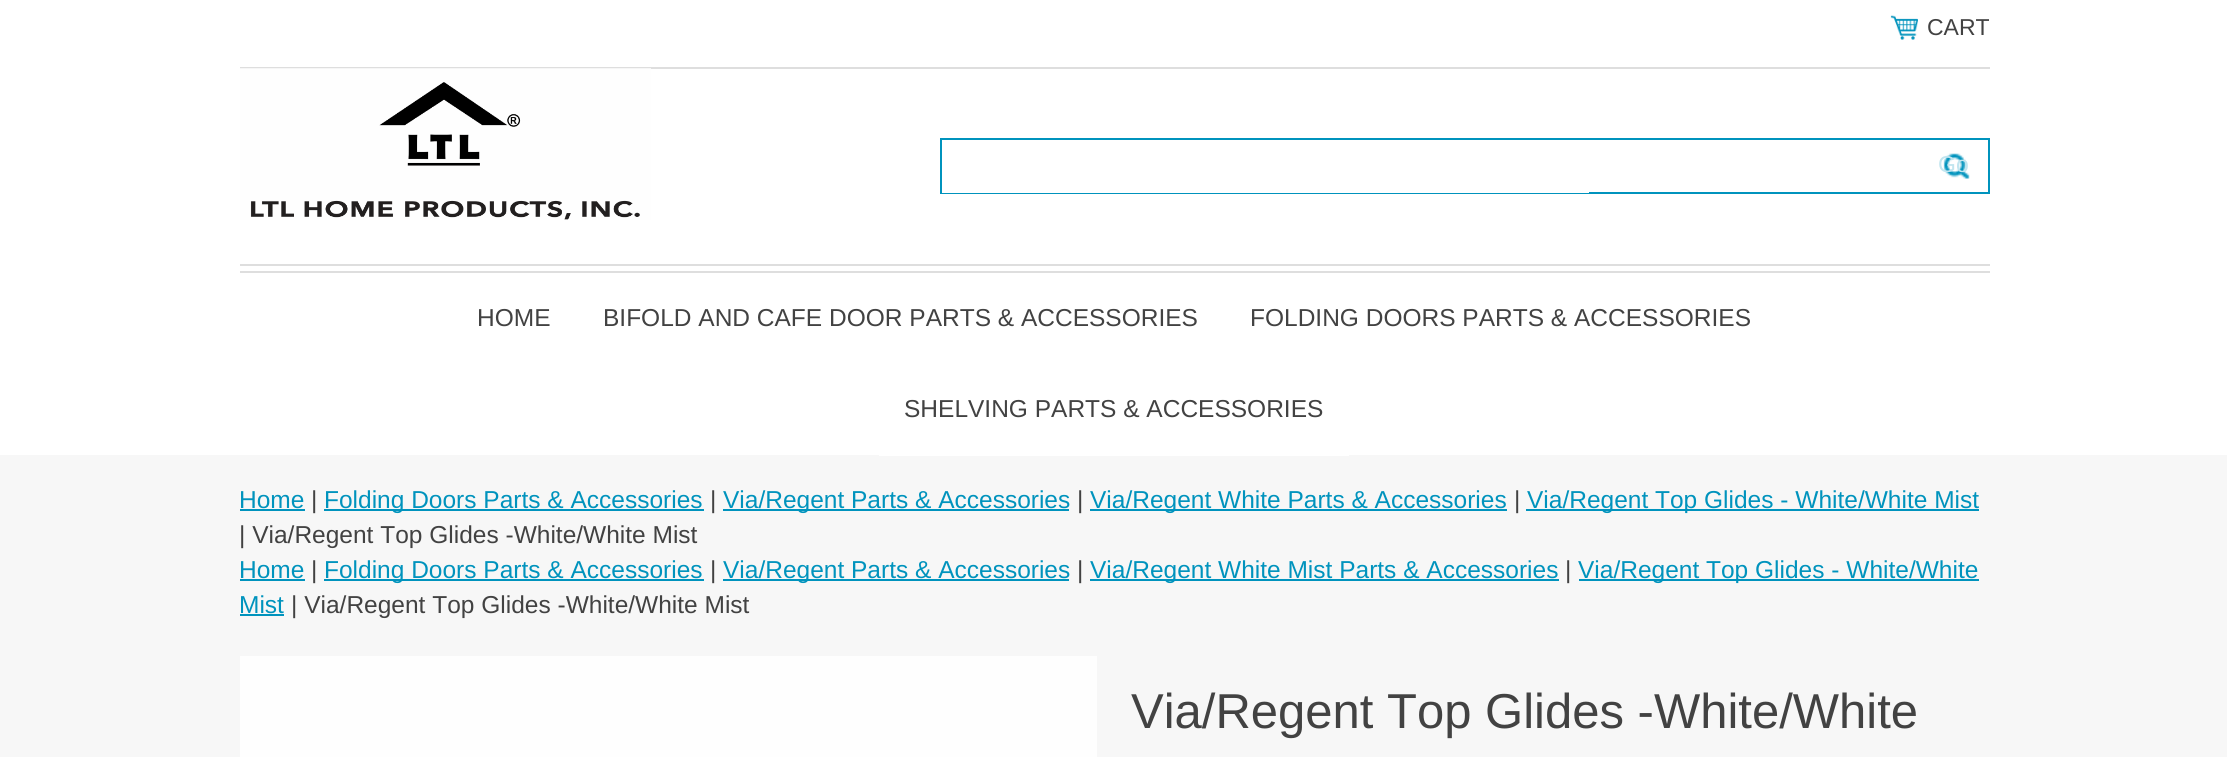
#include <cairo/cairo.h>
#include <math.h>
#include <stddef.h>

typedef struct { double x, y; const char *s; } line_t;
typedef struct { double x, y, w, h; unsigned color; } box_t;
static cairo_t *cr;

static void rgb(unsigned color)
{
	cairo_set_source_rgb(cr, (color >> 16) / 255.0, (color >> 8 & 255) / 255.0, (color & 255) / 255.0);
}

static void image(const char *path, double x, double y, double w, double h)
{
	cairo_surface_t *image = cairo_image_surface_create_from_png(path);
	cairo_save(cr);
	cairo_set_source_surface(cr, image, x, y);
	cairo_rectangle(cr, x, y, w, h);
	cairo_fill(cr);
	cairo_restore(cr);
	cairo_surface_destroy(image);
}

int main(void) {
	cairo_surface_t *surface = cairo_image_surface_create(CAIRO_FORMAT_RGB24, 2227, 757);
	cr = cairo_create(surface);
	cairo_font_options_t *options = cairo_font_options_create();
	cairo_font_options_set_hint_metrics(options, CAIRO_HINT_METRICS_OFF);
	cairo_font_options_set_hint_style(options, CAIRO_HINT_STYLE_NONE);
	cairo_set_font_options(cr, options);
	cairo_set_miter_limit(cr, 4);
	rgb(0xffffff);
	cairo_paint(cr);
	image("img/1.png", 1890, 15, 28, 25);
	rgb(0xdedede);
	cairo_rectangle(cr, 240, 67, 1750, 2);
	cairo_fill(cr);
	cairo_rectangle(cr, 240, 264, 1750, 2);
	cairo_fill(cr);
	image("img/2.png", 240, 68, 411, 152);
	cairo_rectangle(cr, 941, 139, 1048, 54);
	rgb(0x0093bd);
	cairo_stroke(cr);
	image("img/3.png", 1922, 140, 66, 49);
	{
		static const box_t items[] = {
			{942, 192, 647, 1, 0xffffff},
			{240, 271, 1750, 2, 0xdedede},
			{0, 455, 2227, 302, 0xf7f7f7},
			{879, 455, 470, 1, 0xffffff},
			{240, 509, 65, 2, 0x0093bd},
			{324, 509, 380, 2, 0x0093bd},
			{723, 509, 346, 2, 0x0093bd},
			{1090, 509, 417, 2, 0x0093bd},
			{1526, 509, 453, 2, 0x0093bd},
			{240, 579, 65, 2, 0x0093bd},
			{324, 579, 380, 2, 0x0093bd},
			{723, 579, 346, 2, 0x0093bd},
			{1090, 579, 469, 2, 0x0093bd},
			{1579, 579, 400, 2, 0x0093bd},
			{240, 614, 44, 2, 0x0093bd},
			{240, 656, 857, 101, 0xfefefe},
		};
		for (size_t i = 0; i < sizeof items / sizeof *items; i++) {
			rgb(items[i].color);
			cairo_rectangle(cr, items[i].x, items[i].y, items[i].w, items[i].h);
			cairo_fill(cr);
		}
	}
	cairo_select_font_face(cr, "Liberation Sans", CAIRO_FONT_SLANT_NORMAL, CAIRO_FONT_WEIGHT_NORMAL);
	cairo_set_font_size(cr, 23);
	rgb(0x424242);
	cairo_move_to(cr, 1927, 35);
	cairo_show_text(cr, "CART");
	rgb(0xc1e5ef);
	cairo_move_to(cr, 1938, 172);
	cairo_show_text(cr, "Go");
	cairo_set_font_size(cr, 24.5);
	rgb(0x424242);
	{
		static const line_t items[] = {
			{477, 326, "HOME"},
			{603, 326, "BIFOLD AND CAFE DOOR PARTS & ACCESSORIES"},
			{1250, 326, "FOLDING DOORS PARTS & ACCESSORIES"},
			{904, 417, "SHELVING PARTS & ACCESSORIES"},
		};
		for (size_t i = 0; i < sizeof items / sizeof *items; i++) {
			cairo_move_to(cr, items[i].x, items[i].y);
			cairo_show_text(cr, items[i].s);
		}
	}
	rgb(0x0093bd);
	cairo_move_to(cr, 239, 508);
	cairo_show_text(cr, "Home");
	rgb(0x424242);
	cairo_move_to(cr, 311, 508);
	cairo_show_text(cr, "|");
	rgb(0x0093bd);
	cairo_move_to(cr, 324, 508);
	cairo_show_text(cr, "Folding Doors Parts & Accessories");
	rgb(0x424242);
	cairo_move_to(cr, 710, 508);
	cairo_show_text(cr, "|");
	rgb(0x0093bd);
	cairo_move_to(cr, 723, 508);
	cairo_show_text(cr, "Via/Regent Parts & Accessories");
	rgb(0x424242);
	cairo_move_to(cr, 1077, 508);
	cairo_show_text(cr, "|");
	rgb(0x0093bd);
	cairo_move_to(cr, 1090, 508);
	cairo_show_text(cr, "Via/Regent White Parts & Accessories");
	rgb(0x424242);
	cairo_move_to(cr, 1514, 508);
	cairo_show_text(cr, "|");
	rgb(0x0093bd);
	cairo_move_to(cr, 1527, 508);
	cairo_show_text(cr, "Via/Regent Top Glides - White/White Mist");
	rgb(0x424242);
	cairo_move_to(cr, 239, 543);
	cairo_show_text(cr, "| Via/Regent Top Glides -White/White Mist");
	rgb(0x0093bd);
	cairo_move_to(cr, 239, 578);
	cairo_show_text(cr, "Home");
	rgb(0x424242);
	cairo_move_to(cr, 311, 578);
	cairo_show_text(cr, "|");
	rgb(0x0093bd);
	cairo_move_to(cr, 324, 578);
	cairo_show_text(cr, "Folding Doors Parts & Accessories");
	rgb(0x424242);
	cairo_move_to(cr, 710, 578);
	cairo_show_text(cr, "|");
	rgb(0x0093bd);
	cairo_move_to(cr, 723, 578);
	cairo_show_text(cr, "Via/Regent Parts & Accessories");
	rgb(0x424242);
	cairo_move_to(cr, 1077, 578);
	cairo_show_text(cr, "|");
	rgb(0x0093bd);
	cairo_move_to(cr, 1090, 578);
	cairo_show_text(cr, "Via/Regent White Mist Parts & Accessories");
	rgb(0x424242);
	cairo_move_to(cr, 1565, 578);
	cairo_show_text(cr, "|");
	rgb(0x0093bd);
	cairo_move_to(cr, 1578, 578);
	cairo_show_text(cr, "Via/Regent Top Glides - White/White");
	cairo_move_to(cr, 239, 613);
	cairo_show_text(cr, "Mist");
	rgb(0x424242);
	cairo_move_to(cr, 291, 613);
	cairo_show_text(cr, "| Via/Regent Top Glides -White/White Mist");
	cairo_set_font_size(cr, 49);
	cairo_move_to(cr, 1131, 728);
	cairo_show_text(cr, "Via/Regent Top Glides -White/White");
	cairo_surface_write_to_png(surface, "page.png");
	cairo_font_options_destroy(options);
	cairo_destroy(cr);
	cairo_surface_destroy(surface);
	return 0;
}
